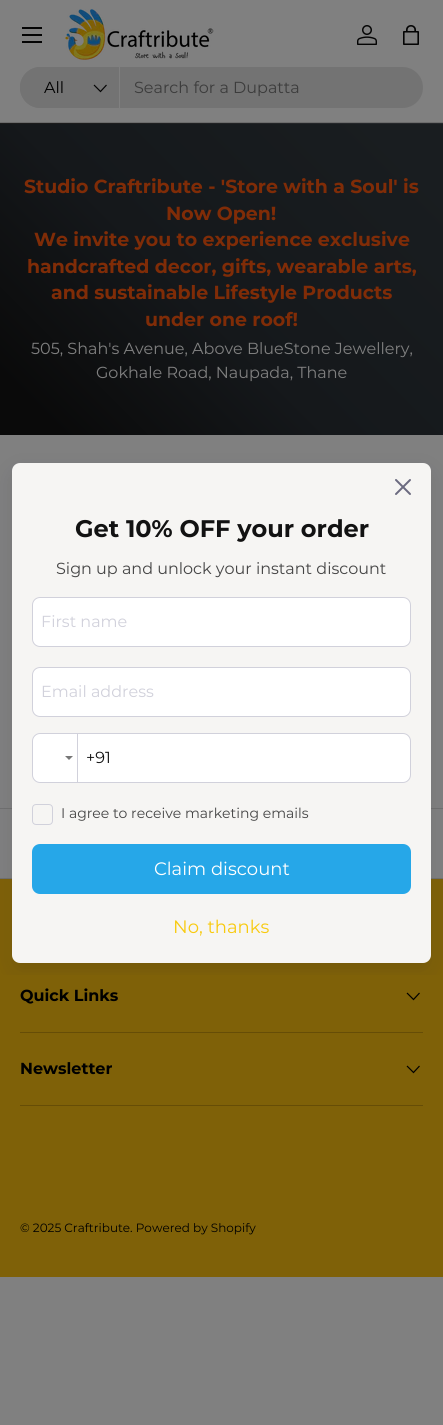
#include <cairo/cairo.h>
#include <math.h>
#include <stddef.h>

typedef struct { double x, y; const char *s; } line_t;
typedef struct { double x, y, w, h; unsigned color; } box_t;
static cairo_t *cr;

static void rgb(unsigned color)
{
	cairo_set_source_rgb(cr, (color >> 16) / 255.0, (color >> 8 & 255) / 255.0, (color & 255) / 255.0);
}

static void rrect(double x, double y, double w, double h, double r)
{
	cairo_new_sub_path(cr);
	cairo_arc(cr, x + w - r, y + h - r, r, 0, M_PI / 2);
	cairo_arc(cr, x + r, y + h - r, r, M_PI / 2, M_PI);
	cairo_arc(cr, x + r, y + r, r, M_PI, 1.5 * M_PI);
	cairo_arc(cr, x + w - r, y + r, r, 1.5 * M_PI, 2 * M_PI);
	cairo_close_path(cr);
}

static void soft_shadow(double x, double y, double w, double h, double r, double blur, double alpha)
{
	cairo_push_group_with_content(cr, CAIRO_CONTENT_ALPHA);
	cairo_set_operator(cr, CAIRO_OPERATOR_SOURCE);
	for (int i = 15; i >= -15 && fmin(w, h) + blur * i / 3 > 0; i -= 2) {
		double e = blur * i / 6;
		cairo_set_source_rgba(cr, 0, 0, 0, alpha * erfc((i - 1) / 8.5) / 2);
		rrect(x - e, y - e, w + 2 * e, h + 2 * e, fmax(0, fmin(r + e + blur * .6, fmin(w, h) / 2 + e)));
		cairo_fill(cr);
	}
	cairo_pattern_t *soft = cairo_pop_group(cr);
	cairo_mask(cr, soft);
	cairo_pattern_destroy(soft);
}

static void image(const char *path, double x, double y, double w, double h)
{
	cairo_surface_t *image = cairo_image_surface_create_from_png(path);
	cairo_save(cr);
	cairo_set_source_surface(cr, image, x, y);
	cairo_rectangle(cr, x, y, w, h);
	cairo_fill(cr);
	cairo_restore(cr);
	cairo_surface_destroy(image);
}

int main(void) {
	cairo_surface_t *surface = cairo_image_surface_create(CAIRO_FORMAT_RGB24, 443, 1425);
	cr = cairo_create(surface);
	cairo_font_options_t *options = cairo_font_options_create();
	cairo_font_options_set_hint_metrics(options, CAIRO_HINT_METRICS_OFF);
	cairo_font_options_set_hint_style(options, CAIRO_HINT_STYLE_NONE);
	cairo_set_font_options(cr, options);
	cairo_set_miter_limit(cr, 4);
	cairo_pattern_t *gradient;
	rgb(0x808080);
	cairo_paint(cr);
	{
		static const box_t items[] = {
			{0, 122, 443, 1, 0x6d6d6d},
			{22, 27, 20, 2, 0x040404},
			{22, 41, 20, 2, 0x040404},
			{22, 34, 20, 2, 0x040404},
		};
		for (size_t i = 0; i < sizeof items / sizeof *items; i++) {
			rgb(items[i].color);
			cairo_rectangle(cr, items[i].x, items[i].y, items[i].w, items[i].h);
			cairo_fill(cr);
		}
	}
	image("img/1.png", 65, 9, 149, 51);
	image("img/2.png", 357, 25, 20, 20);
	image("img/3.png", 403, 25, 16, 20);
	rgb(0x737373);
	rrect(20, 67, 403, 41, 20.5);
	cairo_fill(cr);
	cairo_new_path(cr);
	cairo_move_to(cr, 40.5, 67);
	cairo_line_to(cr, 120, 67);
	cairo_line_to(cr, 120, 108);
	cairo_line_to(cr, 40.5, 108);
	cairo_curve_to(cr, 29, 108, 20, 99, 20, 87.5);
	cairo_curve_to(cr, 20, 76, 29, 67, 40.5, 67);
	cairo_close_path(cr);
	cairo_fill(cr);
	rgb(0x808080);
	cairo_rectangle(cr, 119, 67, 1, 41);
	cairo_fill(cr);
	cairo_new_path(cr);
	cairo_move_to(cr, 106.5, 85);
	cairo_line_to(cr, 100.5, 91.5);
	cairo_line_to(cr, 94, 85);
	rgb(0x040404);
	cairo_set_line_width(cr, 1.2);
	cairo_stroke(cr);
	gradient = cairo_pattern_create_linear(410, -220, 33, 157);
	cairo_pattern_add_color_stop_rgba(gradient, 0.08, 0.161, 0.173, 0.184, 1);
	cairo_pattern_add_color_stop_rgba(gradient, 0.56, 0.145, 0.153, 0.165, 1);
	cairo_pattern_add_color_stop_rgba(gradient, 0.92, 0.11, 0.11, 0.11, 1);
	cairo_set_source(cr, gradient);
	cairo_pattern_destroy(gradient);
	cairo_rectangle(cr, 0, 123, 443, 1);
	cairo_fill(cr);
	gradient = cairo_pattern_create_linear(410, 91, 33, 468);
	cairo_pattern_add_color_stop_rgba(gradient, 0.08, 0.098, 0.114, 0.125, 1);
	cairo_pattern_add_color_stop_rgba(gradient, 0.56, 0.082, 0.094, 0.106, 1);
	cairo_pattern_add_color_stop_rgba(gradient, 0.92, 0.039, 0.039, 0.039, 1);
	cairo_set_source(cr, gradient);
	cairo_pattern_destroy(gradient);
	cairo_rectangle(cr, 0, 124, 443, 311);
	cairo_fill(cr);
	{
		static const box_t items[] = {
			{0, 808, 443, 1, 0x707070},
			{0, 878, 443, 1, 0x707070},
			{0, 879, 443, 398, 0x7f6108},
		};
		for (size_t i = 0; i < sizeof items / sizeof *items; i++) {
			rgb(items[i].color);
			cairo_rectangle(cr, items[i].x, items[i].y, items[i].w, items[i].h);
			cairo_fill(cr);
		}
	}
	cairo_new_path(cr);
	cairo_move_to(cr, 419.5, 993);
	cairo_line_to(cr, 413.5, 999.5);
	cairo_line_to(cr, 407, 993);
	rgb(0x000000);
	cairo_stroke(cr);
	cairo_save(cr);
	cairo_rectangle(cr, 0, 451, 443, 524);
	cairo_clip(cr);
	rgb(0x121127);
	soft_shadow(12, 471, 419, 500, 8, 10, 0.1);
	cairo_restore(cr);
	rgb(0xf6f5f3);
	rrect(12, 463, 419, 500, 8);
	cairo_fill(cr);
	image("img/4.png", 395, 479, 16, 16);
	rgb(0xffffff);
	rrect(32.5, 597.5, 378, 49, 7.5);
	cairo_fill_preserve(cr);
	rgb(0xd1d1db);
	cairo_set_line_width(cr, 1);
	cairo_stroke(cr);
	rgb(0xffffff);
	rrect(32.5, 667.5, 378, 49, 7.5);
	cairo_fill_preserve(cr);
	rgb(0xd1d1db);
	cairo_stroke(cr);
	rgb(0xffffff);
	cairo_new_path(cr);
	cairo_move_to(cr, 77.5, 733.5);
	cairo_line_to(cr, 403, 733.5);
	cairo_curve_to(cr, 407, 733.5, 410.5, 737, 410.5, 741);
	cairo_line_to(cr, 410.5, 775);
	cairo_curve_to(cr, 410.5, 779, 407, 782.5, 403, 782.5);
	cairo_line_to(cr, 77.5, 782.5);
	cairo_close_path(cr);
	cairo_fill_preserve(cr);
	rgb(0xd1d1db);
	cairo_stroke(cr);
	rgb(0xffffff);
	cairo_new_path(cr);
	cairo_move_to(cr, 40, 733.5);
	cairo_line_to(cr, 77.5, 733.5);
	cairo_line_to(cr, 77.5, 782.5);
	cairo_line_to(cr, 40, 782.5);
	cairo_curve_to(cr, 36, 782.5, 32.5, 779, 32.5, 775);
	cairo_line_to(cr, 32.5, 741);
	cairo_curve_to(cr, 32.5, 737, 36, 733.5, 40, 733.5);
	cairo_close_path(cr);
	cairo_fill_preserve(cr);
	rgb(0xd1d1db);
	cairo_stroke(cr);
	rgb(0x777777);
	cairo_new_path(cr);
	cairo_move_to(cr, 65, 756);
	cairo_line_to(cr, 73, 756);
	cairo_line_to(cr, 69, 760);
	cairo_close_path(cr);
	cairo_fill(cr);
	rrect(32.5, 804.5, 20, 20, 3.5);
	rgb(0xd1d1db);
	cairo_stroke(cr);
	rgb(0x26a7e8);
	rrect(32, 844, 379, 50, 8);
	cairo_fill(cr);
	rgb(0x664d06);
	cairo_rectangle(cr, 20, 1032, 403, 1);
	cairo_fill(cr);
	cairo_rectangle(cr, 20, 1105, 403, 1);
	cairo_fill(cr);
	cairo_new_path(cr);
	cairo_move_to(cr, 419.5, 1066);
	cairo_line_to(cr, 413.5, 1072.5);
	cairo_line_to(cr, 407, 1066);
	rgb(0x000000);
	cairo_set_line_width(cr, 1.2);
	cairo_stroke(cr);
	cairo_select_font_face(cr, "Montserrat", CAIRO_FONT_SLANT_NORMAL, CAIRO_FONT_WEIGHT_NORMAL);
	cairo_set_font_size(cr, 16);
	cairo_move_to(cr, 44, 93);
	cairo_show_text(cr, "All");
	rgb(0x3c3c3c);
	cairo_move_to(cr, 134, 93);
	cairo_show_text(cr, "Search for a Dupatta");
	cairo_select_font_face(cr, "Montserrat", CAIRO_FONT_SLANT_NORMAL, CAIRO_FONT_WEIGHT_BOLD);
	cairo_set_font_size(cr, 18.9);
	rgb(0x802c07);
	{
		static const line_t items[] = {
			{24, 193, "Studio Craftribute - 'Store with a Soul' is"},
			{166, 220, "Now Open!"},
			{34, 246, "We invite you to experience exclusive"},
			{27, 273, "handcrafted decor, gifts, wearable arts,"},
			{51, 299, "and sustainable Lifestyle Products"},
			{145, 326, "under one roof!"},
		};
		for (size_t i = 0; i < sizeof items / sizeof *items; i++) {
			cairo_move_to(cr, items[i].x, items[i].y);
			cairo_show_text(cr, items[i].s);
		}
	}
	cairo_select_font_face(cr, "Montserrat", CAIRO_FONT_SLANT_NORMAL, CAIRO_FONT_WEIGHT_NORMAL);
	cairo_set_font_size(cr, 16);
	rgb(0x808080);
	cairo_move_to(cr, 31, 354);
	cairo_show_text(cr, "505, Shah's Avenue, Above BlueStone Jewellery,");
	cairo_move_to(cr, 96, 378);
	cairo_show_text(cr, "Gokhale Road, Naupada, Thane");
	cairo_select_font_face(cr, "Montserrat", CAIRO_FONT_SLANT_NORMAL, CAIRO_FONT_WEIGHT_BOLD);
	cairo_set_font_size(cr, 24);
	rgb(0x121212);
	cairo_move_to(cr, 75, 537);
	cairo_show_text(cr, "Get 10% OFF your order");
	cairo_select_font_face(cr, "Montserrat", CAIRO_FONT_SLANT_NORMAL, CAIRO_FONT_WEIGHT_NORMAL);
	cairo_set_font_size(cr, 16);
	rgb(0x454545);
	cairo_move_to(cr, 56, 574);
	cairo_show_text(cr, "Sign up and unlock your instant discount");
	rgb(0xd1d1db);
	cairo_move_to(cr, 41, 627);
	cairo_show_text(cr, "First name");
	cairo_move_to(cr, 41, 697);
	cairo_show_text(cr, "Email address");
	rgb(0x121212);
	cairo_move_to(cr, 86, 763);
	cairo_show_text(cr, "+91");
	cairo_set_font_size(cr, 14);
	rgb(0x454545);
	cairo_move_to(cr, 61, 818);
	cairo_show_text(cr, "I agree to receive marketing emails");
	cairo_set_font_size(cr, 18);
	rgb(0xffffff);
	cairo_move_to(cr, 154, 875);
	cairo_show_text(cr, "Claim discount");
	rgb(0xf8ca0e);
	cairo_move_to(cr, 173, 933);
	cairo_show_text(cr, "No, thanks");
	cairo_select_font_face(cr, "Montserrat", CAIRO_FONT_SLANT_NORMAL, CAIRO_FONT_WEIGHT_BOLD);
	cairo_set_font_size(cr, 16);
	rgb(0x000000);
	cairo_move_to(cr, 20, 1001);
	cairo_show_text(cr, "Quick Links");
	cairo_move_to(cr, 20, 1074);
	cairo_show_text(cr, "Newsletter");
	cairo_select_font_face(cr, "Montserrat", CAIRO_FONT_SLANT_NORMAL, CAIRO_FONT_WEIGHT_NORMAL);
	cairo_set_font_size(cr, 12);
	cairo_move_to(cr, 20, 1232);
	cairo_show_text(cr, "© 2025 Craftribute. Powered by Shopify");
	cairo_surface_write_to_png(surface, "page.png");
	cairo_font_options_destroy(options);
	cairo_destroy(cr);
	cairo_surface_destroy(surface);
	return 0;
}
